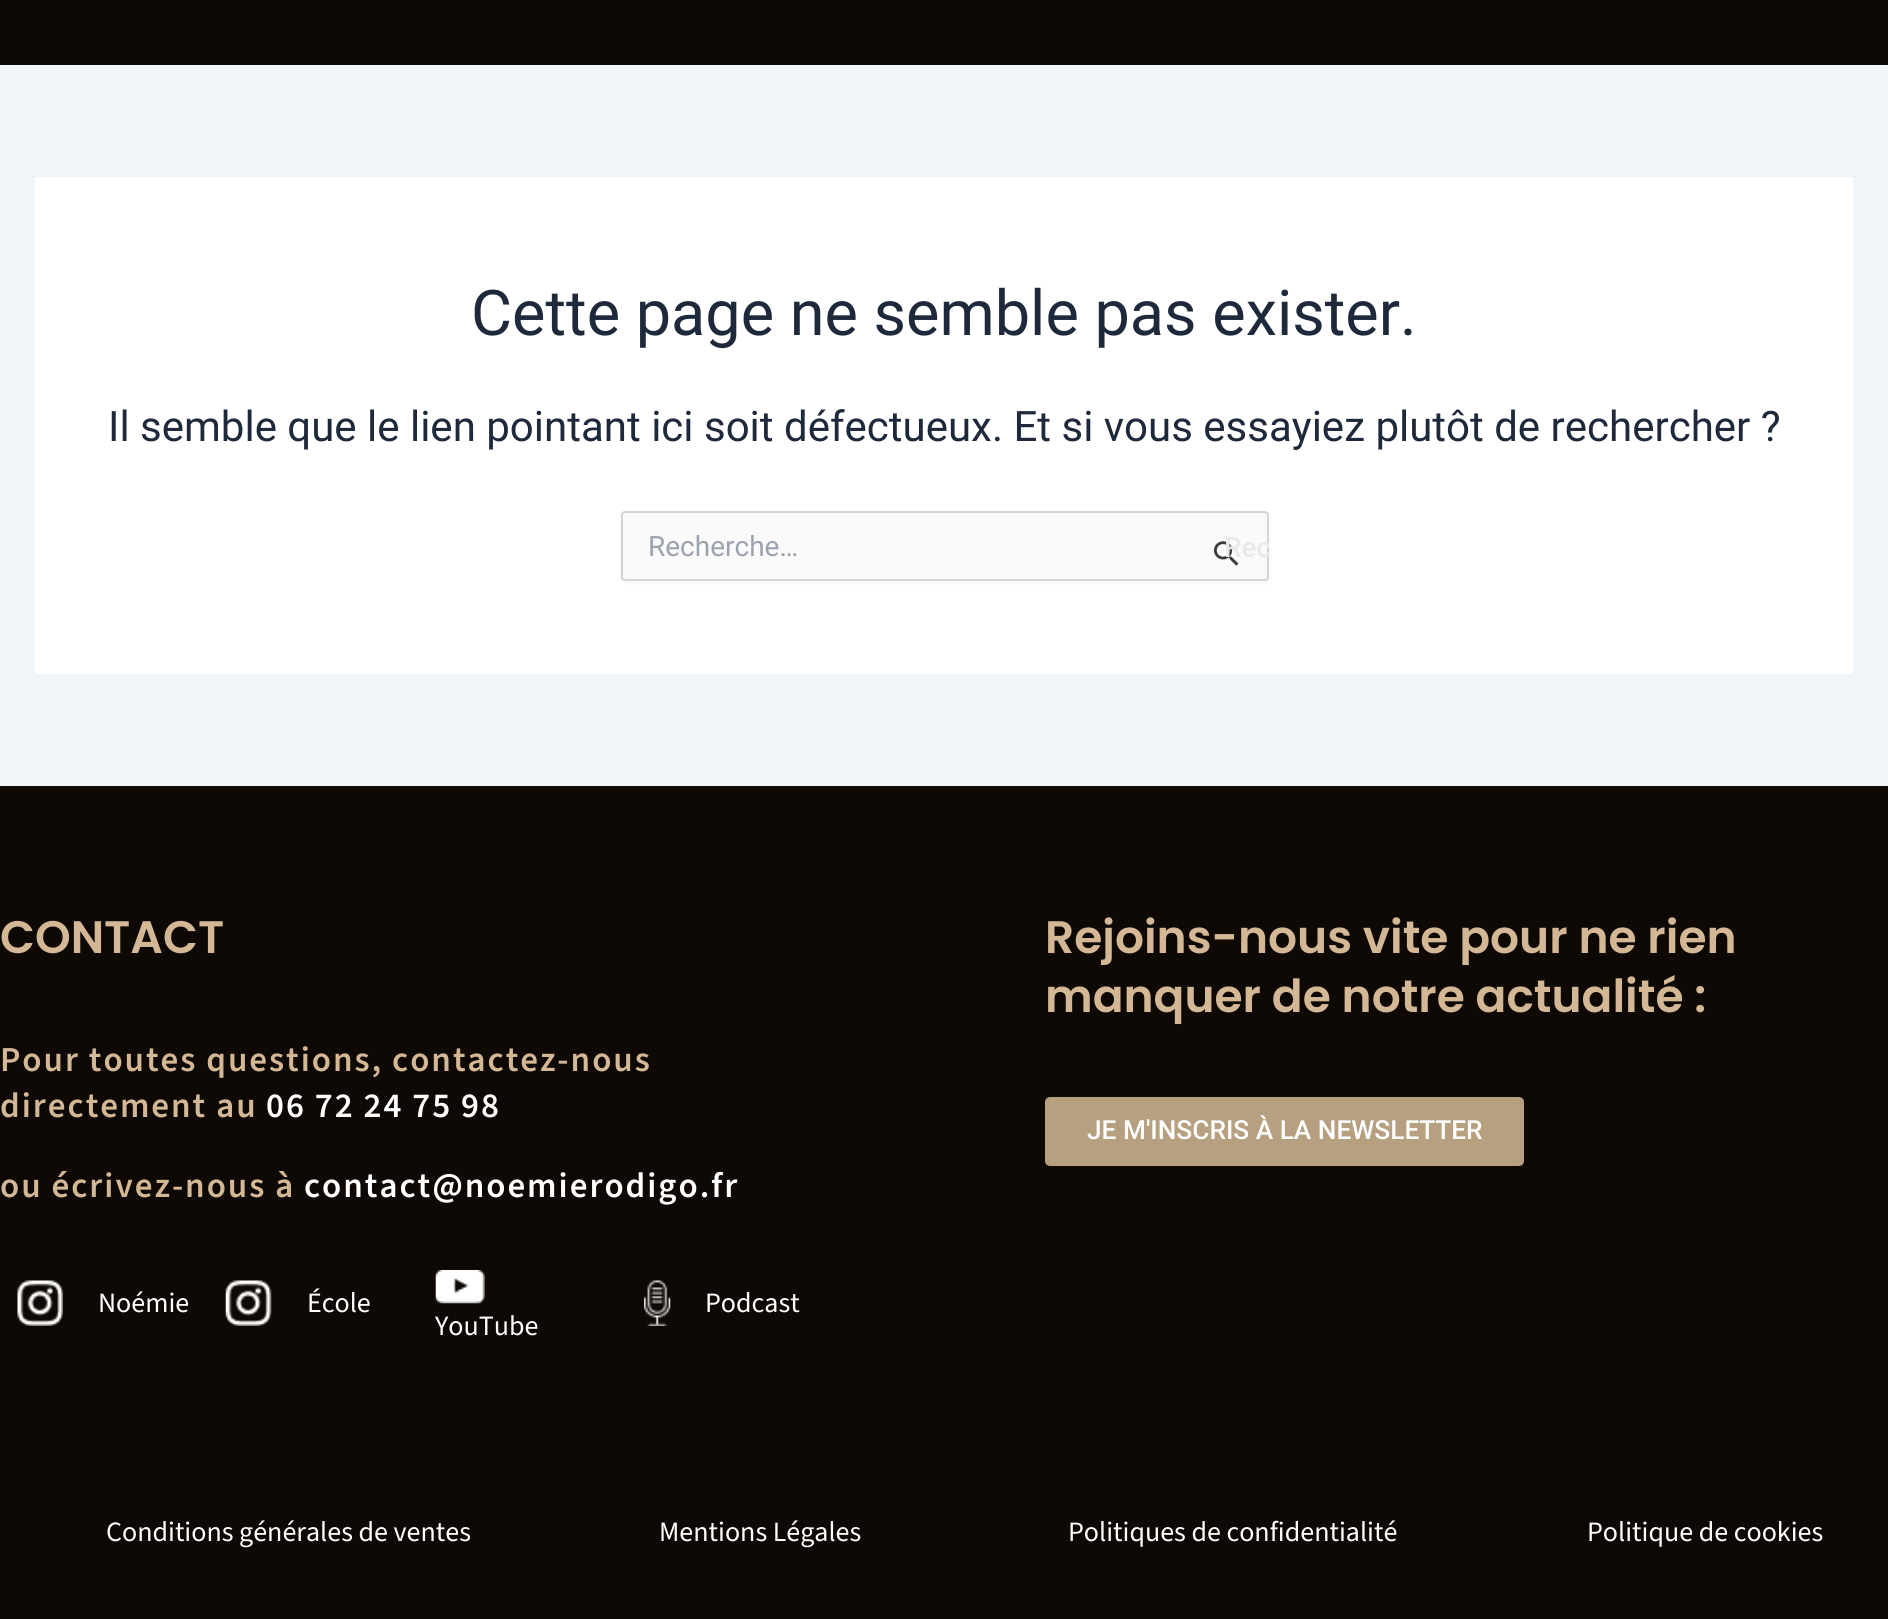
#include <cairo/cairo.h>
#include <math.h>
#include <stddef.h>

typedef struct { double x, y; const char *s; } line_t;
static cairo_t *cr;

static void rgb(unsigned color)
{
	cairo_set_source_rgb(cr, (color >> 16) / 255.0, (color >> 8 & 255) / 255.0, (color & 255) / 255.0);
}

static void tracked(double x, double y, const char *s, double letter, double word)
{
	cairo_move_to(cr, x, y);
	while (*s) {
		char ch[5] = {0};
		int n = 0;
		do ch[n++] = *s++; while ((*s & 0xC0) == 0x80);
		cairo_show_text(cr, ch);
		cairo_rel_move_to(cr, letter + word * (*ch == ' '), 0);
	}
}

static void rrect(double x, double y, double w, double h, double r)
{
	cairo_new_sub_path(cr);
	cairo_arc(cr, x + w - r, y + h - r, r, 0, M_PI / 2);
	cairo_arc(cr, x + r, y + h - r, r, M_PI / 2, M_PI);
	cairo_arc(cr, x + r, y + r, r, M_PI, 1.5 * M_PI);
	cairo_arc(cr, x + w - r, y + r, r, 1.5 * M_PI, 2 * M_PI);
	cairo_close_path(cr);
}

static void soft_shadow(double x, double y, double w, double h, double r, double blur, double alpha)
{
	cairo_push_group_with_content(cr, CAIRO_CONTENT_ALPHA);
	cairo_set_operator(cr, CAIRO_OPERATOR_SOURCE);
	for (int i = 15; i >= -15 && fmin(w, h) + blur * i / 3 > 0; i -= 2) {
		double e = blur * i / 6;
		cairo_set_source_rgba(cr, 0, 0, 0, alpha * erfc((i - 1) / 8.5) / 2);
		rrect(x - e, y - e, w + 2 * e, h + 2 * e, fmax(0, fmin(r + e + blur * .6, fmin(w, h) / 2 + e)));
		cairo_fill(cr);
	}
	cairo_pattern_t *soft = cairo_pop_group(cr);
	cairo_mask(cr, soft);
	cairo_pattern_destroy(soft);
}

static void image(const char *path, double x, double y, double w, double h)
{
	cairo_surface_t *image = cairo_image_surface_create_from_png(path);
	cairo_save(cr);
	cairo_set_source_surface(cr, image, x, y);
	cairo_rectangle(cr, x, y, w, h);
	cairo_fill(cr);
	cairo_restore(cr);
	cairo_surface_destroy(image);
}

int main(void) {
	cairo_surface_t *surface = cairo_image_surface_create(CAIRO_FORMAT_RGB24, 1888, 1619);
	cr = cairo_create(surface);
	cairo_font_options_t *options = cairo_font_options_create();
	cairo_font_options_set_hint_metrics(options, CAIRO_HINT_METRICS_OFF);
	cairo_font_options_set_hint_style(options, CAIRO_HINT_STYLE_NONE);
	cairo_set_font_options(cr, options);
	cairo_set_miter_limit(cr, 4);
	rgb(0xf0f5fa);
	cairo_paint(cr);
	rgb(0x0e0905);
	cairo_rectangle(cr, 0, 0, 1888, 65);
	cairo_fill(cr);
	rgb(0xffffff);
	cairo_rectangle(cr, 35, 177, 1818, 497);
	cairo_fill(cr);
	rgb(0x000000);
	soft_shadow(621, 513, 648, 70, 4, 2, 0.05);
	rgb(0xfafafa);
	rrect(622, 512, 646, 68, 3);
	cairo_fill_preserve(cr);
	rgb(0xd1d5db);
	cairo_stroke(cr);
	image("img/1.png", 1214, 541, 25, 25);
	rgb(0x0e0905);
	cairo_rectangle(cr, 0, 786, 1888, 833);
	cairo_fill(cr);
	image("img/2.png", 17, 1280, 46, 46);
	image("img/3.png", 225, 1280, 47, 46);
	image("img/4.png", 644, 1280, 27, 46);
	image("img/5.png", 435, 1270, 50, 34);
	rgb(0xb7a07f);
	rrect(1045, 1097, 479, 69, 5);
	cairo_fill(cr);
	cairo_select_font_face(cr, "Roboto", CAIRO_FONT_SLANT_NORMAL, CAIRO_FONT_WEIGHT_NORMAL);
	cairo_set_font_size(cr, 63);
	rgb(0x1e293b);
	cairo_move_to(cr, 471, 335);
	cairo_show_text(cr, "Cette page ne semble pas exister.");
	cairo_set_font_size(cr, 42);
	cairo_move_to(cr, 108, 441);
	cairo_show_text(cr, "Il semble que le lien pointant ici soit défectueux. Et si vous essayiez plutôt de rechercher ?");
	cairo_set_font_size(cr, 28);
	rgb(0x9ca3af);
	cairo_move_to(cr, 648, 556);
	cairo_show_text(cr, "Recherche…");
	cairo_save(cr);
	rrect(1190, 511, 79, 74, 4);
	cairo_clip(cr);
	cairo_select_font_face(cr, "Roboto Medium", CAIRO_FONT_SLANT_NORMAL, CAIRO_FONT_WEIGHT_NORMAL);
	rgb(0xe9e9ea);
	cairo_move_to(cr, 1224, 557);
	cairo_show_text(cr, "Rec");
	cairo_restore(cr);
	cairo_select_font_face(cr, "Poppins SemiBold", CAIRO_FONT_SLANT_NORMAL, CAIRO_FONT_WEIGHT_NORMAL);
	cairo_set_font_size(cr, 45.5);
	rgb(0xd4b896);
	cairo_move_to(cr, 0, 953);
	cairo_show_text(cr, "CONTACT");
	cairo_select_font_face(cr, "Source Sans 3 SemiBold", CAIRO_FONT_SLANT_NORMAL, CAIRO_FONT_WEIGHT_NORMAL);
	cairo_set_font_size(cr, 35);
	tracked(0, 1071, "Pour toutes questions, contactez-nous", 1.95, 0);
	tracked(0, 1117, "directement au", 1.95, 0);
	rgb(0xffffff);
	tracked(266, 1117, "06 72 24 75 98", 1.95, 0);
	rgb(0xd4b896);
	tracked(0, 1197, "ou écrivez-nous à", 1.95, 0);
	rgb(0xffffff);
	tracked(304, 1197, "contact@noemierodigo.fr", 1.95, 0);
	cairo_select_font_face(cr, "Source Sans 3", CAIRO_FONT_SLANT_NORMAL, CAIRO_FONT_WEIGHT_NORMAL);
	cairo_set_font_size(cr, 28);
	{
		static const line_t items[] = {
			{98, 1312, "Noémie"},
			{307, 1312, "École"},
			{705, 1312, "Podcast"},
			{435, 1335, "YouTube"},
		};
		for (size_t i = 0; i < sizeof items / sizeof *items; i++) {
			cairo_move_to(cr, items[i].x, items[i].y);
			cairo_show_text(cr, items[i].s);
		}
	}
	cairo_select_font_face(cr, "Poppins SemiBold", CAIRO_FONT_SLANT_NORMAL, CAIRO_FONT_WEIGHT_NORMAL);
	cairo_set_font_size(cr, 45.5);
	rgb(0xd4b896);
	cairo_move_to(cr, 1045, 953);
	cairo_show_text(cr, "Rejoins-nous vite pour ne rien");
	cairo_move_to(cr, 1045, 1012);
	cairo_show_text(cr, "manquer de notre actualité :");
	cairo_select_font_face(cr, "Roboto Medium", CAIRO_FONT_SLANT_NORMAL, CAIRO_FONT_WEIGHT_NORMAL);
	cairo_set_font_size(cr, 26.25);
	rgb(0xffffff);
	cairo_move_to(cr, 1087, 1139);
	cairo_show_text(cr, "JE M'INSCRIS À LA NEWSLETTER");
	cairo_select_font_face(cr, "Source Sans 3", CAIRO_FONT_SLANT_NORMAL, CAIRO_FONT_WEIGHT_NORMAL);
	cairo_set_font_size(cr, 28);
	{
		static const line_t items[] = {
			{106, 1541, "Conditions générales de ventes"},
			{659, 1541, "Mentions Légales"},
			{1068, 1541, "Politiques de confidentialité"},
			{1587, 1541, "Politique de cookies"},
		};
		for (size_t i = 0; i < sizeof items / sizeof *items; i++) {
			cairo_move_to(cr, items[i].x, items[i].y);
			cairo_show_text(cr, items[i].s);
		}
	}
	cairo_surface_write_to_png(surface, "page.png");
	cairo_font_options_destroy(options);
	cairo_destroy(cr);
	cairo_surface_destroy(surface);
	return 0;
}
